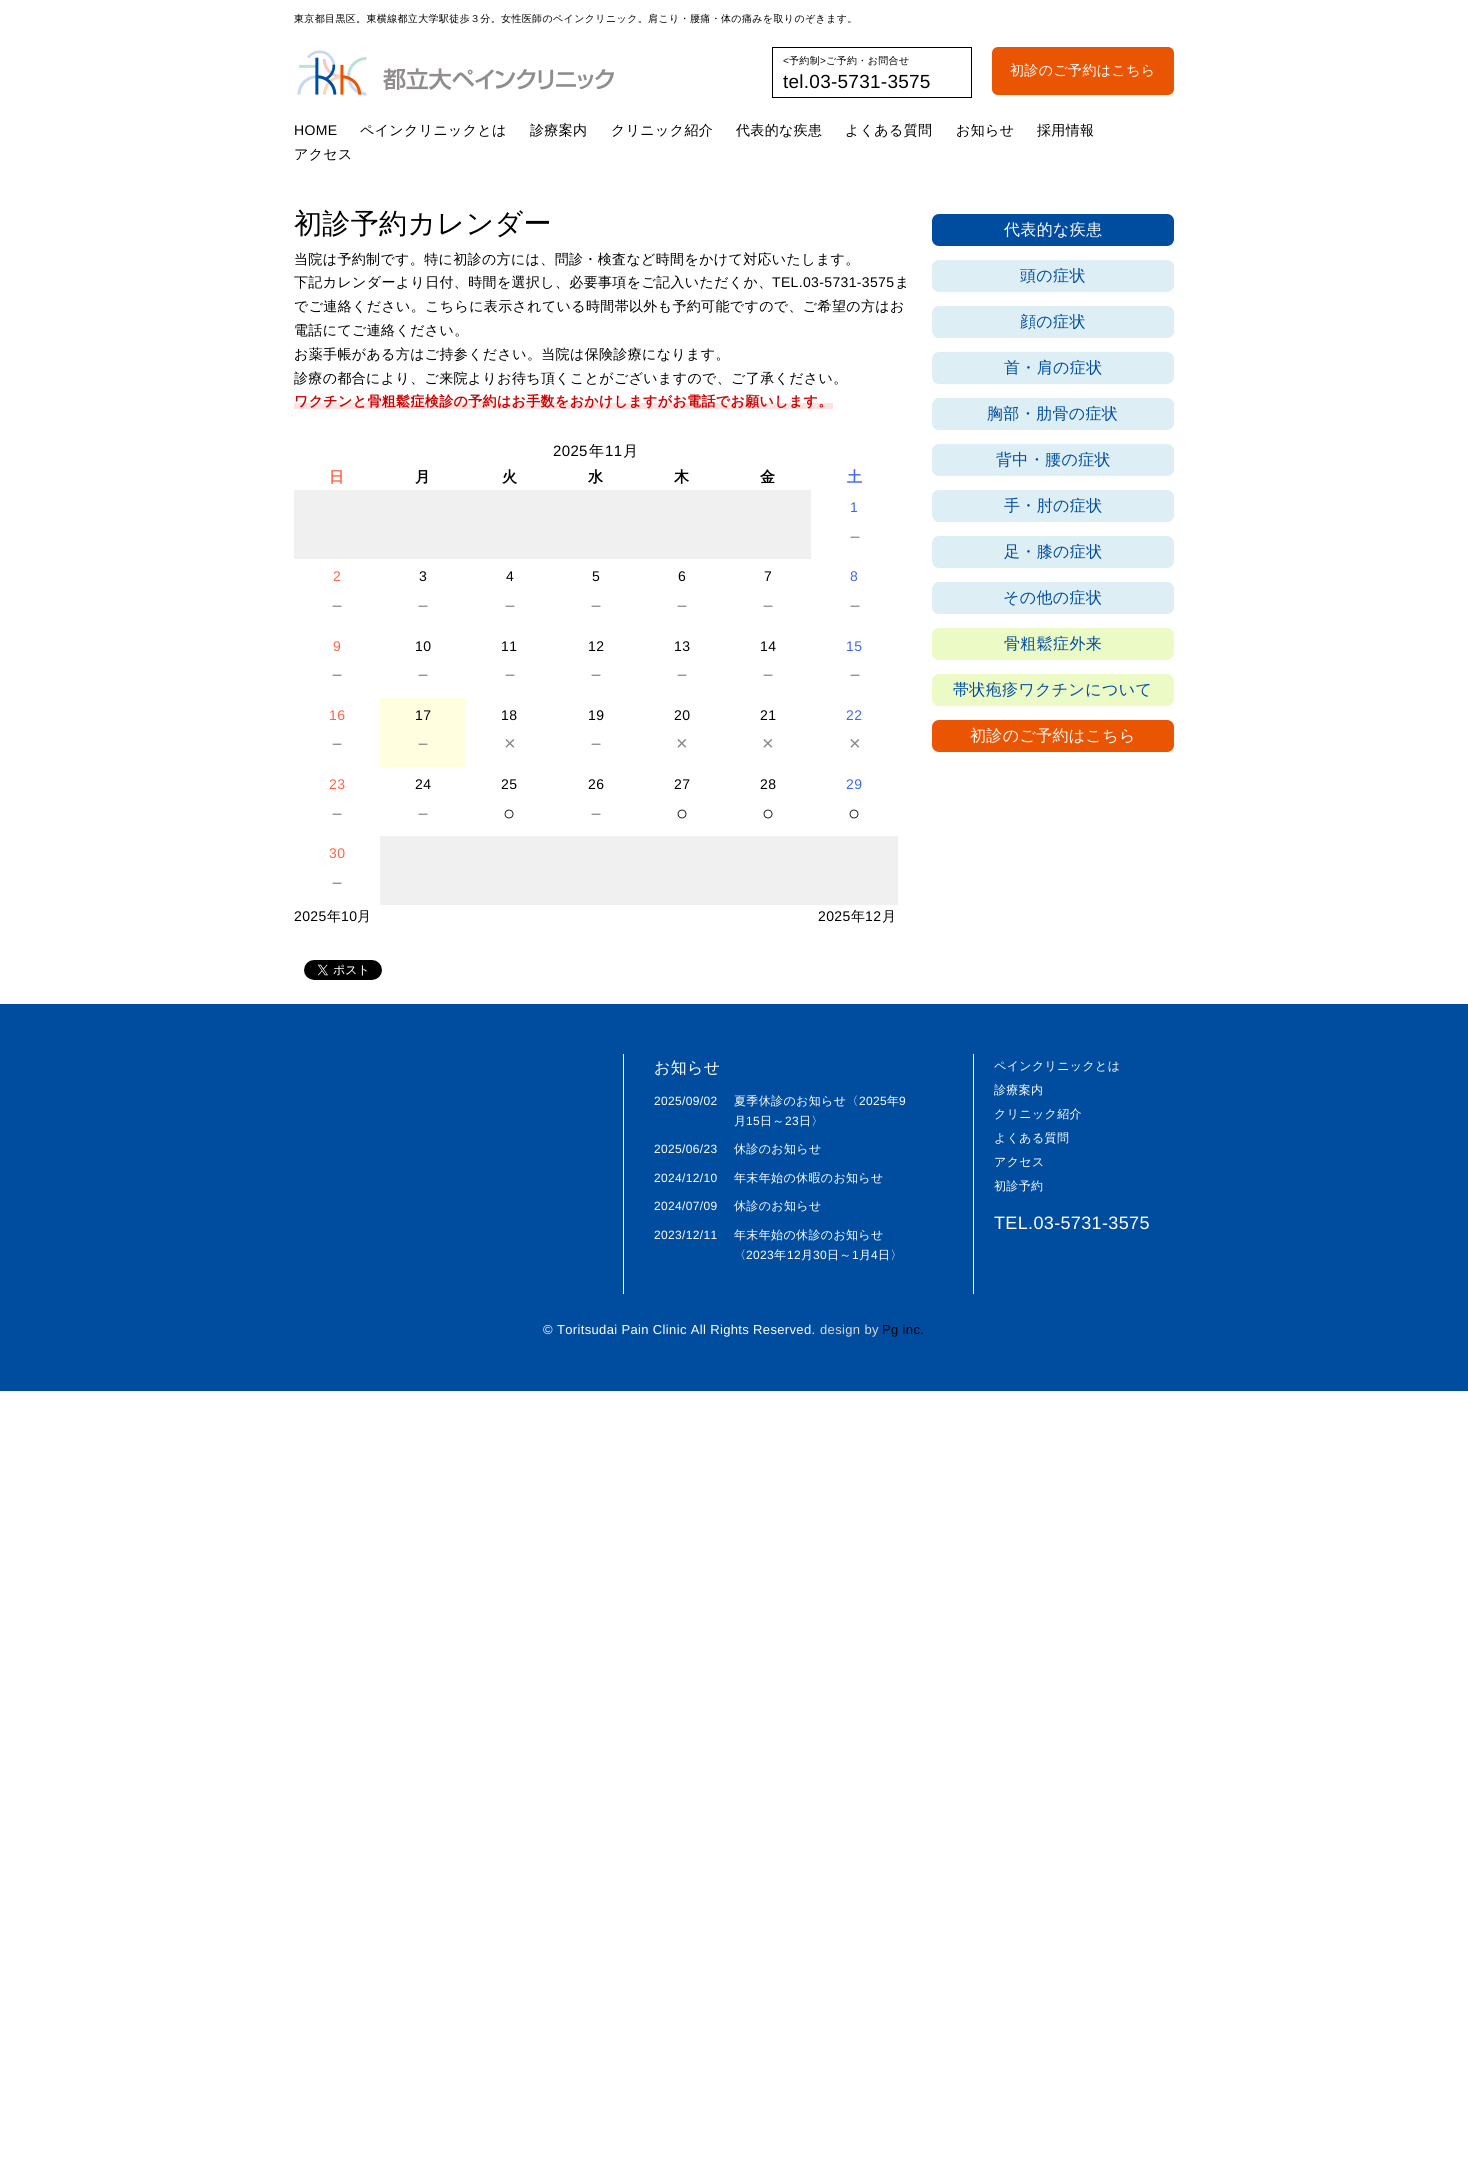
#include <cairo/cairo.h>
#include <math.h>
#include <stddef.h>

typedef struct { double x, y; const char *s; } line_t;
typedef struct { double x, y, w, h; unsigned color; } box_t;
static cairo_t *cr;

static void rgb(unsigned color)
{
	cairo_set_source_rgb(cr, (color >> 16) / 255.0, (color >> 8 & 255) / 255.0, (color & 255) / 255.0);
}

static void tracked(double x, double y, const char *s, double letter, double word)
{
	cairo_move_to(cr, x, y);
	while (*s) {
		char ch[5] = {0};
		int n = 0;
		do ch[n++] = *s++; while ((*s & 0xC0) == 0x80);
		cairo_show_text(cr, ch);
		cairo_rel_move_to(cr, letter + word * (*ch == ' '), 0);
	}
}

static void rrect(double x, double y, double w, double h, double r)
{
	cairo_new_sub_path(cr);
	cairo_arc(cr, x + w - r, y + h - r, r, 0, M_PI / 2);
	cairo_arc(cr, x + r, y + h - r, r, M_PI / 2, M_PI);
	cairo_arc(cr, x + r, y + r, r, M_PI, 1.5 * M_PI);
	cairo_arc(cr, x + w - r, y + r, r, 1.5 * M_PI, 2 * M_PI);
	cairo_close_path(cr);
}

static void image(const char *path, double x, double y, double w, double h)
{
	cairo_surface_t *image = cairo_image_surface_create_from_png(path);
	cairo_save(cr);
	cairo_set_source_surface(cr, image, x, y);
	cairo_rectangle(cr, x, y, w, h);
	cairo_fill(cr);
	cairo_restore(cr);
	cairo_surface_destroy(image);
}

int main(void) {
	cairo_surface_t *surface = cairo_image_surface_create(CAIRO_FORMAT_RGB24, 1468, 2179);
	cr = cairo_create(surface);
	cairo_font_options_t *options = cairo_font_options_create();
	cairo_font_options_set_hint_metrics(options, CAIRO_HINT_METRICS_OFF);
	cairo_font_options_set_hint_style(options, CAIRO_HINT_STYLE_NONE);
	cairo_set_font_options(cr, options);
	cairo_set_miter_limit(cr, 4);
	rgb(0xffffff);
	cairo_paint(cr);
	image("img/1.png", 297, 50, 317, 46);
	cairo_rectangle(cr, 772.5, 47.5, 199, 50);
	rgb(0x000000);
	cairo_set_line_width(cr, 1);
	cairo_stroke(cr);
	rgb(0xea5504);
	rrect(992, 47, 182, 48, 6);
	cairo_fill(cr);
	{
		static const box_t items[] = {
			{294, 403, 539, 6, 0xffe2e2},
			{294, 490, 517, 69, 0xf0f0f0},
			{380, 698, 86, 69, 0xffffe0},
			{380, 836, 518, 69, 0xf0f0f0},
		};
		for (size_t i = 0; i < sizeof items / sizeof *items; i++) {
			rgb(items[i].color);
			cairo_rectangle(cr, items[i].x, items[i].y, items[i].w, items[i].h);
			cairo_fill(cr);
		}
	}
	image("img/2.png", 304, 960, 78, 20);
	rgb(0x004da0);
	rrect(932, 214, 242, 32, 7);
	cairo_fill(cr);
	rgb(0xdeeef5);
	rrect(932, 260, 242, 32, 7);
	cairo_fill(cr);
	rrect(932, 306, 242, 32, 7);
	cairo_fill(cr);
	rrect(932, 352, 242, 32, 7);
	cairo_fill(cr);
	rrect(932, 398, 242, 32, 7);
	cairo_fill(cr);
	rrect(932, 444, 242, 32, 7);
	cairo_fill(cr);
	rrect(932, 490, 242, 32, 7);
	cairo_fill(cr);
	rrect(932, 536, 242, 32, 7);
	cairo_fill(cr);
	rrect(932, 582, 242, 32, 7);
	cairo_fill(cr);
	rgb(0xecfbc6);
	rrect(932, 628, 242, 32, 7);
	cairo_fill(cr);
	rrect(932, 674, 242, 32, 7);
	cairo_fill(cr);
	rgb(0xea5504);
	rrect(932, 720, 242, 32, 7);
	cairo_fill(cr);
	{
		static const box_t items[] = {
			{0, 1004, 1468, 387, 0x004da0},
			{623, 1054, 1, 240, 0xffffff},
			{973, 1054, 1, 240, 0xffffff},
		};
		for (size_t i = 0; i < sizeof items / sizeof *items; i++) {
			rgb(items[i].color);
			cairo_rectangle(cr, items[i].x, items[i].y, items[i].w, items[i].h);
			cairo_fill(cr);
		}
	}
	cairo_select_font_face(cr, "WenQuanYi Zen Hei Medium", CAIRO_FONT_SLANT_NORMAL, CAIRO_FONT_WEIGHT_NORMAL);
	cairo_set_font_size(cr, 10);
	rgb(0x000000);
	tracked(294, 22, "東京都目黒区。東横線都立大学駅徒歩３分。女性医師のペインクリニック。肩こり・腰痛・体の痛みを取りのぞきます。", 0.35, 0);
	cairo_select_font_face(cr, "Liberation Sans", CAIRO_FONT_SLANT_NORMAL, CAIRO_FONT_WEIGHT_NORMAL);
	tracked(783, 64, "<", 0.35, 0);
	cairo_select_font_face(cr, "WenQuanYi Zen Hei Medium", CAIRO_FONT_SLANT_NORMAL, CAIRO_FONT_WEIGHT_NORMAL);
	tracked(789, 64, "予約制", 0.35, 0);
	cairo_select_font_face(cr, "Liberation Sans", CAIRO_FONT_SLANT_NORMAL, CAIRO_FONT_WEIGHT_NORMAL);
	tracked(820, 64, ">", 0.35, 0);
	cairo_select_font_face(cr, "WenQuanYi Zen Hei Medium", CAIRO_FONT_SLANT_NORMAL, CAIRO_FONT_WEIGHT_NORMAL);
	tracked(826, 64, "ご予約・お問合せ", 0.35, 0);
	cairo_select_font_face(cr, "Liberation Sans", CAIRO_FONT_SLANT_NORMAL, CAIRO_FONT_WEIGHT_NORMAL);
	cairo_set_font_size(cr, 19);
	tracked(783, 88, "tel.03-5731-3575", 0.25, 0);
	cairo_select_font_face(cr, "WenQuanYi Zen Hei Medium", CAIRO_FONT_SLANT_NORMAL, CAIRO_FONT_WEIGHT_NORMAL);
	cairo_set_font_size(cr, 14);
	rgb(0xffffff);
	tracked(1010, 75, "初診のご予約はこちら", 0.35, 0);
	cairo_select_font_face(cr, "Liberation Sans", CAIRO_FONT_SLANT_NORMAL, CAIRO_FONT_WEIGHT_NORMAL);
	rgb(0x000000);
	tracked(294, 135, "HOME", 0.35, 0);
	cairo_select_font_face(cr, "WenQuanYi Zen Hei Medium", CAIRO_FONT_SLANT_NORMAL, CAIRO_FONT_WEIGHT_NORMAL);
	{
		static const line_t items[] = {
			{360, 135, "ペインクリニックとは"},
			{530, 135, "診療案内"},
			{611, 135, "クリニック紹介"},
			{736, 135, "代表的な疾患"},
			{845, 135, "よくある質問"},
			{956, 135, "お知らせ"},
			{1037, 135, "採用情報"},
			{294, 159, "アクセス"},
		};
		for (size_t i = 0; i < sizeof items / sizeof *items; i++) {
			tracked(items[i].x, items[i].y, items[i].s, 0.35, 0);
		}
	}
	cairo_set_font_size(cr, 28);
	tracked(294, 233, "初診予約カレンダー", 0.35, 0);
	cairo_set_font_size(cr, 14);
	tracked(294, 264, "当院は予約制です。特に初診の方には、問診・検査など時間をかけて対応いたします。", 0.35, 0);
	tracked(294, 287, "下記カレンダーより日付、時間を選択し、必要事項をご記入いただくか、", 0.35, 0);
	cairo_select_font_face(cr, "Liberation Sans", CAIRO_FONT_SLANT_NORMAL, CAIRO_FONT_WEIGHT_NORMAL);
	tracked(772, 287, "TEL.03-5731-3575", 0.35, 0);
	cairo_select_font_face(cr, "WenQuanYi Zen Hei Medium", CAIRO_FONT_SLANT_NORMAL, CAIRO_FONT_WEIGHT_NORMAL);
	{
		static const line_t items[] = {
			{895, 287, "ま"},
			{294, 311, "でご連絡ください。こちらに表示されている時間帯以外も予約可能ですので、ご希望の方はお"},
			{294, 335, "電話にてご連絡ください。"},
			{294, 359, "お薬手帳がある方はご持参ください。当院は保険診療になります。"},
			{294, 383, "診療の都合により、ご来院よりお待ち頂くことがございますので、ご了承ください。"},
		};
		for (size_t i = 0; i < sizeof items / sizeof *items; i++) {
			tracked(items[i].x, items[i].y, items[i].s, 0.35, 0);
		}
	}
	cairo_select_font_face(cr, "WenQuanYi Zen Hei", CAIRO_FONT_SLANT_NORMAL, CAIRO_FONT_WEIGHT_BOLD);
	rgb(0xcc0000);
	tracked(294, 406, "ワクチンと骨粗鬆症検診の予約はお手数をおかけしますがお電話でお願いします。", 0.35, 0);
	cairo_select_font_face(cr, "Liberation Sans", CAIRO_FONT_SLANT_NORMAL, CAIRO_FONT_WEIGHT_NORMAL);
	cairo_set_font_size(cr, 15);
	rgb(0x000000);
	tracked(553, 456, "2025", 0.35, 0);
	cairo_select_font_face(cr, "WenQuanYi Zen Hei Medium", CAIRO_FONT_SLANT_NORMAL, CAIRO_FONT_WEIGHT_NORMAL);
	tracked(589, 456, "年", 0.35, 0);
	cairo_select_font_face(cr, "Liberation Sans", CAIRO_FONT_SLANT_NORMAL, CAIRO_FONT_WEIGHT_NORMAL);
	tracked(605, 456, "11", 0.35, 0);
	cairo_select_font_face(cr, "WenQuanYi Zen Hei Medium", CAIRO_FONT_SLANT_NORMAL, CAIRO_FONT_WEIGHT_NORMAL);
	tracked(623, 456, "月", 0.35, 0);
	cairo_select_font_face(cr, "WenQuanYi Zen Hei", CAIRO_FONT_SLANT_NORMAL, CAIRO_FONT_WEIGHT_BOLD);
	rgb(0xff6347);
	tracked(329, 482, "日", 0.35, 0);
	rgb(0x000000);
	{
		static const line_t items[] = {
			{415, 482, "月"},
			{502, 482, "火"},
			{588, 482, "水"},
			{674, 482, "木"},
			{760, 482, "金"},
		};
		for (size_t i = 0; i < sizeof items / sizeof *items; i++) {
			tracked(items[i].x, items[i].y, items[i].s, 0.35, 0);
		}
	}
	rgb(0x4169e1);
	tracked(847, 482, "土", 0.35, 0);
	cairo_select_font_face(cr, "Liberation Sans", CAIRO_FONT_SLANT_NORMAL, CAIRO_FONT_WEIGHT_NORMAL);
	cairo_set_font_size(cr, 14);
	tracked(850, 512, "1", 0.35, 0);
	cairo_select_font_face(cr, "WenQuanYi Zen Hei Medium", CAIRO_FONT_SLANT_NORMAL, CAIRO_FONT_WEIGHT_NORMAL);
	cairo_set_font_size(cr, 20);
	rgb(0x888888);
	tracked(845, 543, "－", 0.35, 0);
	cairo_select_font_face(cr, "Liberation Sans", CAIRO_FONT_SLANT_NORMAL, CAIRO_FONT_WEIGHT_NORMAL);
	cairo_set_font_size(cr, 14);
	rgb(0xff6347);
	tracked(333, 581, "2", 0.35, 0);
	cairo_select_font_face(cr, "WenQuanYi Zen Hei Medium", CAIRO_FONT_SLANT_NORMAL, CAIRO_FONT_WEIGHT_NORMAL);
	cairo_set_font_size(cr, 20);
	rgb(0x888888);
	tracked(327, 612, "－", 0.35, 0);
	cairo_select_font_face(cr, "Liberation Sans", CAIRO_FONT_SLANT_NORMAL, CAIRO_FONT_WEIGHT_NORMAL);
	cairo_set_font_size(cr, 14);
	rgb(0x000000);
	tracked(419, 581, "3", 0.35, 0);
	cairo_select_font_face(cr, "WenQuanYi Zen Hei Medium", CAIRO_FONT_SLANT_NORMAL, CAIRO_FONT_WEIGHT_NORMAL);
	cairo_set_font_size(cr, 20);
	rgb(0x888888);
	tracked(413, 612, "－", 0.35, 0);
	cairo_select_font_face(cr, "Liberation Sans", CAIRO_FONT_SLANT_NORMAL, CAIRO_FONT_WEIGHT_NORMAL);
	cairo_set_font_size(cr, 14);
	rgb(0x000000);
	tracked(506, 581, "4", 0.35, 0);
	cairo_select_font_face(cr, "WenQuanYi Zen Hei Medium", CAIRO_FONT_SLANT_NORMAL, CAIRO_FONT_WEIGHT_NORMAL);
	cairo_set_font_size(cr, 20);
	rgb(0x888888);
	tracked(500, 612, "－", 0.35, 0);
	cairo_select_font_face(cr, "Liberation Sans", CAIRO_FONT_SLANT_NORMAL, CAIRO_FONT_WEIGHT_NORMAL);
	cairo_set_font_size(cr, 14);
	rgb(0x000000);
	tracked(592, 581, "5", 0.35, 0);
	cairo_select_font_face(cr, "WenQuanYi Zen Hei Medium", CAIRO_FONT_SLANT_NORMAL, CAIRO_FONT_WEIGHT_NORMAL);
	cairo_set_font_size(cr, 20);
	rgb(0x888888);
	tracked(586, 612, "－", 0.35, 0);
	cairo_select_font_face(cr, "Liberation Sans", CAIRO_FONT_SLANT_NORMAL, CAIRO_FONT_WEIGHT_NORMAL);
	cairo_set_font_size(cr, 14);
	rgb(0x000000);
	tracked(678, 581, "6", 0.35, 0);
	cairo_select_font_face(cr, "WenQuanYi Zen Hei Medium", CAIRO_FONT_SLANT_NORMAL, CAIRO_FONT_WEIGHT_NORMAL);
	cairo_set_font_size(cr, 20);
	rgb(0x888888);
	tracked(672, 612, "－", 0.35, 0);
	cairo_select_font_face(cr, "Liberation Sans", CAIRO_FONT_SLANT_NORMAL, CAIRO_FONT_WEIGHT_NORMAL);
	cairo_set_font_size(cr, 14);
	rgb(0x000000);
	tracked(764, 581, "7", 0.35, 0);
	cairo_select_font_face(cr, "WenQuanYi Zen Hei Medium", CAIRO_FONT_SLANT_NORMAL, CAIRO_FONT_WEIGHT_NORMAL);
	cairo_set_font_size(cr, 20);
	rgb(0x888888);
	tracked(758, 612, "－", 0.35, 0);
	cairo_select_font_face(cr, "Liberation Sans", CAIRO_FONT_SLANT_NORMAL, CAIRO_FONT_WEIGHT_NORMAL);
	cairo_set_font_size(cr, 14);
	rgb(0x4169e1);
	tracked(850, 581, "8", 0.35, 0);
	cairo_select_font_face(cr, "WenQuanYi Zen Hei Medium", CAIRO_FONT_SLANT_NORMAL, CAIRO_FONT_WEIGHT_NORMAL);
	cairo_set_font_size(cr, 20);
	rgb(0x888888);
	tracked(845, 612, "－", 0.35, 0);
	cairo_select_font_face(cr, "Liberation Sans", CAIRO_FONT_SLANT_NORMAL, CAIRO_FONT_WEIGHT_NORMAL);
	cairo_set_font_size(cr, 14);
	rgb(0xff6347);
	tracked(333, 651, "9", 0.35, 0);
	cairo_select_font_face(cr, "WenQuanYi Zen Hei Medium", CAIRO_FONT_SLANT_NORMAL, CAIRO_FONT_WEIGHT_NORMAL);
	cairo_set_font_size(cr, 20);
	rgb(0x888888);
	tracked(327, 681, "－", 0.35, 0);
	cairo_select_font_face(cr, "Liberation Sans", CAIRO_FONT_SLANT_NORMAL, CAIRO_FONT_WEIGHT_NORMAL);
	cairo_set_font_size(cr, 14);
	rgb(0x000000);
	tracked(415, 651, "10", 0.35, 0);
	cairo_select_font_face(cr, "WenQuanYi Zen Hei Medium", CAIRO_FONT_SLANT_NORMAL, CAIRO_FONT_WEIGHT_NORMAL);
	cairo_set_font_size(cr, 20);
	rgb(0x888888);
	tracked(413, 681, "－", 0.35, 0);
	cairo_select_font_face(cr, "Liberation Sans", CAIRO_FONT_SLANT_NORMAL, CAIRO_FONT_WEIGHT_NORMAL);
	cairo_set_font_size(cr, 14);
	rgb(0x000000);
	tracked(501, 651, "11", 0.35, 0);
	cairo_select_font_face(cr, "WenQuanYi Zen Hei Medium", CAIRO_FONT_SLANT_NORMAL, CAIRO_FONT_WEIGHT_NORMAL);
	cairo_set_font_size(cr, 20);
	rgb(0x888888);
	tracked(500, 681, "－", 0.35, 0);
	cairo_select_font_face(cr, "Liberation Sans", CAIRO_FONT_SLANT_NORMAL, CAIRO_FONT_WEIGHT_NORMAL);
	cairo_set_font_size(cr, 14);
	rgb(0x000000);
	tracked(588, 651, "12", 0.35, 0);
	cairo_select_font_face(cr, "WenQuanYi Zen Hei Medium", CAIRO_FONT_SLANT_NORMAL, CAIRO_FONT_WEIGHT_NORMAL);
	cairo_set_font_size(cr, 20);
	rgb(0x888888);
	tracked(586, 681, "－", 0.35, 0);
	cairo_select_font_face(cr, "Liberation Sans", CAIRO_FONT_SLANT_NORMAL, CAIRO_FONT_WEIGHT_NORMAL);
	cairo_set_font_size(cr, 14);
	rgb(0x000000);
	tracked(674, 651, "13", 0.35, 0);
	cairo_select_font_face(cr, "WenQuanYi Zen Hei Medium", CAIRO_FONT_SLANT_NORMAL, CAIRO_FONT_WEIGHT_NORMAL);
	cairo_set_font_size(cr, 20);
	rgb(0x888888);
	tracked(672, 681, "－", 0.35, 0);
	cairo_select_font_face(cr, "Liberation Sans", CAIRO_FONT_SLANT_NORMAL, CAIRO_FONT_WEIGHT_NORMAL);
	cairo_set_font_size(cr, 14);
	rgb(0x000000);
	tracked(760, 651, "14", 0.35, 0);
	cairo_select_font_face(cr, "WenQuanYi Zen Hei Medium", CAIRO_FONT_SLANT_NORMAL, CAIRO_FONT_WEIGHT_NORMAL);
	cairo_set_font_size(cr, 20);
	rgb(0x888888);
	tracked(758, 681, "－", 0.35, 0);
	cairo_select_font_face(cr, "Liberation Sans", CAIRO_FONT_SLANT_NORMAL, CAIRO_FONT_WEIGHT_NORMAL);
	cairo_set_font_size(cr, 14);
	rgb(0x4169e1);
	tracked(846, 651, "15", 0.35, 0);
	cairo_select_font_face(cr, "WenQuanYi Zen Hei Medium", CAIRO_FONT_SLANT_NORMAL, CAIRO_FONT_WEIGHT_NORMAL);
	cairo_set_font_size(cr, 20);
	rgb(0x888888);
	tracked(845, 681, "－", 0.35, 0);
	cairo_select_font_face(cr, "Liberation Sans", CAIRO_FONT_SLANT_NORMAL, CAIRO_FONT_WEIGHT_NORMAL);
	cairo_set_font_size(cr, 14);
	rgb(0xff6347);
	tracked(329, 720, "16", 0.35, 0);
	cairo_select_font_face(cr, "WenQuanYi Zen Hei Medium", CAIRO_FONT_SLANT_NORMAL, CAIRO_FONT_WEIGHT_NORMAL);
	cairo_set_font_size(cr, 20);
	rgb(0x888888);
	tracked(327, 750, "－", 0.35, 0);
	cairo_select_font_face(cr, "Liberation Sans", CAIRO_FONT_SLANT_NORMAL, CAIRO_FONT_WEIGHT_NORMAL);
	cairo_set_font_size(cr, 14);
	rgb(0x000000);
	tracked(415, 720, "17", 0.35, 0);
	cairo_select_font_face(cr, "WenQuanYi Zen Hei Medium", CAIRO_FONT_SLANT_NORMAL, CAIRO_FONT_WEIGHT_NORMAL);
	cairo_set_font_size(cr, 20);
	rgb(0x888888);
	tracked(413, 750, "－", 0.35, 0);
	cairo_select_font_face(cr, "Liberation Sans", CAIRO_FONT_SLANT_NORMAL, CAIRO_FONT_WEIGHT_NORMAL);
	cairo_set_font_size(cr, 14);
	rgb(0x000000);
	tracked(501, 720, "18", 0.35, 0);
	cairo_set_font_size(cr, 20);
	rgb(0x888888);
	tracked(504, 750, "×", 0.35, 0);
	cairo_set_font_size(cr, 14);
	rgb(0x000000);
	tracked(588, 720, "19", 0.35, 0);
	cairo_select_font_face(cr, "WenQuanYi Zen Hei Medium", CAIRO_FONT_SLANT_NORMAL, CAIRO_FONT_WEIGHT_NORMAL);
	cairo_set_font_size(cr, 20);
	rgb(0x888888);
	tracked(586, 750, "－", 0.35, 0);
	cairo_select_font_face(cr, "Liberation Sans", CAIRO_FONT_SLANT_NORMAL, CAIRO_FONT_WEIGHT_NORMAL);
	cairo_set_font_size(cr, 14);
	rgb(0x000000);
	tracked(674, 720, "20", 0.35, 0);
	cairo_set_font_size(cr, 20);
	rgb(0x888888);
	tracked(676, 750, "×", 0.35, 0);
	cairo_set_font_size(cr, 14);
	rgb(0x000000);
	tracked(760, 720, "21", 0.35, 0);
	cairo_set_font_size(cr, 20);
	rgb(0x888888);
	tracked(762, 750, "×", 0.35, 0);
	cairo_set_font_size(cr, 14);
	rgb(0x4169e1);
	tracked(846, 720, "22", 0.35, 0);
	cairo_set_font_size(cr, 20);
	rgb(0x888888);
	tracked(849, 750, "×", 0.35, 0);
	cairo_set_font_size(cr, 14);
	rgb(0xff6347);
	tracked(329, 789, "23", 0.35, 0);
	cairo_select_font_face(cr, "WenQuanYi Zen Hei Medium", CAIRO_FONT_SLANT_NORMAL, CAIRO_FONT_WEIGHT_NORMAL);
	cairo_set_font_size(cr, 20);
	rgb(0x888888);
	tracked(327, 820, "－", 0.35, 0);
	cairo_select_font_face(cr, "Liberation Sans", CAIRO_FONT_SLANT_NORMAL, CAIRO_FONT_WEIGHT_NORMAL);
	cairo_set_font_size(cr, 14);
	rgb(0x000000);
	tracked(415, 789, "24", 0.35, 0);
	cairo_select_font_face(cr, "WenQuanYi Zen Hei Medium", CAIRO_FONT_SLANT_NORMAL, CAIRO_FONT_WEIGHT_NORMAL);
	cairo_set_font_size(cr, 20);
	rgb(0x888888);
	tracked(413, 820, "－", 0.35, 0);
	cairo_select_font_face(cr, "Liberation Sans", CAIRO_FONT_SLANT_NORMAL, CAIRO_FONT_WEIGHT_NORMAL);
	cairo_set_font_size(cr, 14);
	rgb(0x000000);
	tracked(501, 789, "25", 0.35, 0);
	cairo_set_font_size(cr, 20);
	tracked(503, 820, "○", 0.35, 0);
	cairo_set_font_size(cr, 14);
	tracked(588, 789, "26", 0.35, 0);
	cairo_select_font_face(cr, "WenQuanYi Zen Hei Medium", CAIRO_FONT_SLANT_NORMAL, CAIRO_FONT_WEIGHT_NORMAL);
	cairo_set_font_size(cr, 20);
	rgb(0x888888);
	tracked(586, 820, "－", 0.35, 0);
	cairo_select_font_face(cr, "Liberation Sans", CAIRO_FONT_SLANT_NORMAL, CAIRO_FONT_WEIGHT_NORMAL);
	cairo_set_font_size(cr, 14);
	rgb(0x000000);
	tracked(674, 789, "27", 0.35, 0);
	cairo_set_font_size(cr, 20);
	tracked(676, 820, "○", 0.35, 0);
	cairo_set_font_size(cr, 14);
	tracked(760, 789, "28", 0.35, 0);
	cairo_set_font_size(cr, 20);
	tracked(762, 820, "○", 0.35, 0);
	cairo_set_font_size(cr, 14);
	rgb(0x4169e1);
	tracked(846, 789, "29", 0.35, 0);
	cairo_set_font_size(cr, 20);
	rgb(0x000000);
	tracked(848, 820, "○", 0.35, 0);
	cairo_set_font_size(cr, 14);
	rgb(0xff6347);
	tracked(329, 858, "30", 0.35, 0);
	cairo_select_font_face(cr, "WenQuanYi Zen Hei Medium", CAIRO_FONT_SLANT_NORMAL, CAIRO_FONT_WEIGHT_NORMAL);
	cairo_set_font_size(cr, 20);
	rgb(0x888888);
	tracked(327, 889, "－", 0.35, 0);
	cairo_select_font_face(cr, "Liberation Sans", CAIRO_FONT_SLANT_NORMAL, CAIRO_FONT_WEIGHT_NORMAL);
	cairo_set_font_size(cr, 14);
	rgb(0x000000);
	tracked(294, 921, "2025", 0.35, 0);
	cairo_select_font_face(cr, "WenQuanYi Zen Hei Medium", CAIRO_FONT_SLANT_NORMAL, CAIRO_FONT_WEIGHT_NORMAL);
	tracked(327, 921, "年", 0.35, 0);
	cairo_select_font_face(cr, "Liberation Sans", CAIRO_FONT_SLANT_NORMAL, CAIRO_FONT_WEIGHT_NORMAL);
	tracked(341, 921, "10", 0.35, 0);
	cairo_select_font_face(cr, "WenQuanYi Zen Hei Medium", CAIRO_FONT_SLANT_NORMAL, CAIRO_FONT_WEIGHT_NORMAL);
	tracked(357, 921, "月", 0.35, 0);
	cairo_select_font_face(cr, "Liberation Sans", CAIRO_FONT_SLANT_NORMAL, CAIRO_FONT_WEIGHT_NORMAL);
	tracked(818, 921, "2025", 0.35, 0);
	cairo_select_font_face(cr, "WenQuanYi Zen Hei Medium", CAIRO_FONT_SLANT_NORMAL, CAIRO_FONT_WEIGHT_NORMAL);
	tracked(851, 921, "年", 0.35, 0);
	cairo_select_font_face(cr, "Liberation Sans", CAIRO_FONT_SLANT_NORMAL, CAIRO_FONT_WEIGHT_NORMAL);
	tracked(865, 921, "12", 0.35, 0);
	cairo_select_font_face(cr, "WenQuanYi Zen Hei Medium", CAIRO_FONT_SLANT_NORMAL, CAIRO_FONT_WEIGHT_NORMAL);
	tracked(882, 921, "月", 0.35, 0);
	cairo_set_font_size(cr, 16);
	rgb(0xffffff);
	tracked(1004, 235, "代表的な疾患", 0.35, 0);
	rgb(0x004da0);
	{
		static const line_t items[] = {
			{1020, 281, "頭の症状"},
			{1020, 327, "顔の症状"},
			{1004, 373, "首・肩の症状"},
			{987, 419, "胸部・肋骨の症状"},
			{996, 465, "背中・腰の症状"},
			{1004, 511, "手・肘の症状"},
			{1004, 557, "足・膝の症状"},
			{1003, 603, "その他の症状"},
			{1004, 649, "骨粗鬆症外来"},
			{953, 695, "帯状疱疹ワクチンについて"},
		};
		for (size_t i = 0; i < sizeof items / sizeof *items; i++) {
			tracked(items[i].x, items[i].y, items[i].s, 0.35, 0);
		}
	}
	rgb(0xffffff);
	tracked(970, 741, "初診のご予約はこちら", 0.35, 0);
	tracked(654, 1073, "お知らせ", 0.35, 0);
	cairo_select_font_face(cr, "Liberation Sans", CAIRO_FONT_SLANT_NORMAL, CAIRO_FONT_WEIGHT_NORMAL);
	cairo_set_font_size(cr, 12);
	tracked(654, 1105, "2025/09/02", 0.35, 0);
	cairo_select_font_face(cr, "WenQuanYi Zen Hei Medium", CAIRO_FONT_SLANT_NORMAL, CAIRO_FONT_WEIGHT_NORMAL);
	tracked(734, 1105, "夏季休診のお知らせ〈", 0.35, 0);
	cairo_select_font_face(cr, "Liberation Sans", CAIRO_FONT_SLANT_NORMAL, CAIRO_FONT_WEIGHT_NORMAL);
	tracked(859, 1105, "2025", 0.35, 0);
	cairo_select_font_face(cr, "WenQuanYi Zen Hei Medium", CAIRO_FONT_SLANT_NORMAL, CAIRO_FONT_WEIGHT_NORMAL);
	tracked(887, 1105, "年", 0.35, 0);
	cairo_select_font_face(cr, "Liberation Sans", CAIRO_FONT_SLANT_NORMAL, CAIRO_FONT_WEIGHT_NORMAL);
	tracked(899, 1105, "9", 0.35, 0);
	cairo_select_font_face(cr, "WenQuanYi Zen Hei Medium", CAIRO_FONT_SLANT_NORMAL, CAIRO_FONT_WEIGHT_NORMAL);
	tracked(734, 1125, "月", 0.35, 0);
	cairo_select_font_face(cr, "Liberation Sans", CAIRO_FONT_SLANT_NORMAL, CAIRO_FONT_WEIGHT_NORMAL);
	tracked(746, 1125, "15", 0.35, 0);
	cairo_select_font_face(cr, "WenQuanYi Zen Hei Medium", CAIRO_FONT_SLANT_NORMAL, CAIRO_FONT_WEIGHT_NORMAL);
	tracked(760, 1125, "日～", 0.35, 0);
	cairo_select_font_face(cr, "Liberation Sans", CAIRO_FONT_SLANT_NORMAL, CAIRO_FONT_WEIGHT_NORMAL);
	tracked(785, 1125, "23", 0.35, 0);
	cairo_select_font_face(cr, "WenQuanYi Zen Hei Medium", CAIRO_FONT_SLANT_NORMAL, CAIRO_FONT_WEIGHT_NORMAL);
	tracked(799, 1125, "日〉", 0.35, 0);
	cairo_select_font_face(cr, "Liberation Sans", CAIRO_FONT_SLANT_NORMAL, CAIRO_FONT_WEIGHT_NORMAL);
	tracked(654, 1153, "2025/06/23", 0.35, 0);
	cairo_select_font_face(cr, "WenQuanYi Zen Hei Medium", CAIRO_FONT_SLANT_NORMAL, CAIRO_FONT_WEIGHT_NORMAL);
	tracked(734, 1153, "休診のお知らせ", 0.35, 0);
	cairo_select_font_face(cr, "Liberation Sans", CAIRO_FONT_SLANT_NORMAL, CAIRO_FONT_WEIGHT_NORMAL);
	tracked(654, 1182, "2024/12/10", 0.35, 0);
	cairo_select_font_face(cr, "WenQuanYi Zen Hei Medium", CAIRO_FONT_SLANT_NORMAL, CAIRO_FONT_WEIGHT_NORMAL);
	tracked(734, 1182, "年末年始の休暇のお知らせ", 0.35, 0);
	cairo_select_font_face(cr, "Liberation Sans", CAIRO_FONT_SLANT_NORMAL, CAIRO_FONT_WEIGHT_NORMAL);
	tracked(654, 1210, "2024/07/09", 0.35, 0);
	cairo_select_font_face(cr, "WenQuanYi Zen Hei Medium", CAIRO_FONT_SLANT_NORMAL, CAIRO_FONT_WEIGHT_NORMAL);
	tracked(734, 1210, "休診のお知らせ", 0.35, 0);
	cairo_select_font_face(cr, "Liberation Sans", CAIRO_FONT_SLANT_NORMAL, CAIRO_FONT_WEIGHT_NORMAL);
	tracked(654, 1239, "2023/12/11", 0.35, 0);
	cairo_select_font_face(cr, "WenQuanYi Zen Hei Medium", CAIRO_FONT_SLANT_NORMAL, CAIRO_FONT_WEIGHT_NORMAL);
	tracked(734, 1239, "年末年始の休診のお知らせ", 0.35, 0);
	tracked(734, 1259, "〈", 0.35, 0);
	cairo_select_font_face(cr, "Liberation Sans", CAIRO_FONT_SLANT_NORMAL, CAIRO_FONT_WEIGHT_NORMAL);
	tracked(746, 1259, "2023", 0.35, 0);
	cairo_select_font_face(cr, "WenQuanYi Zen Hei Medium", CAIRO_FONT_SLANT_NORMAL, CAIRO_FONT_WEIGHT_NORMAL);
	tracked(774, 1259, "年", 0.35, 0);
	cairo_select_font_face(cr, "Liberation Sans", CAIRO_FONT_SLANT_NORMAL, CAIRO_FONT_WEIGHT_NORMAL);
	tracked(787, 1259, "12", 0.35, 0);
	cairo_select_font_face(cr, "WenQuanYi Zen Hei Medium", CAIRO_FONT_SLANT_NORMAL, CAIRO_FONT_WEIGHT_NORMAL);
	tracked(801, 1259, "月", 0.35, 0);
	cairo_select_font_face(cr, "Liberation Sans", CAIRO_FONT_SLANT_NORMAL, CAIRO_FONT_WEIGHT_NORMAL);
	tracked(813, 1259, "30", 0.35, 0);
	cairo_select_font_face(cr, "WenQuanYi Zen Hei Medium", CAIRO_FONT_SLANT_NORMAL, CAIRO_FONT_WEIGHT_NORMAL);
	tracked(827, 1259, "日～", 0.35, 0);
	cairo_select_font_face(cr, "Liberation Sans", CAIRO_FONT_SLANT_NORMAL, CAIRO_FONT_WEIGHT_NORMAL);
	tracked(852, 1259, "1", 0.35, 0);
	cairo_select_font_face(cr, "WenQuanYi Zen Hei Medium", CAIRO_FONT_SLANT_NORMAL, CAIRO_FONT_WEIGHT_NORMAL);
	tracked(859, 1259, "月", 0.35, 0);
	cairo_select_font_face(cr, "Liberation Sans", CAIRO_FONT_SLANT_NORMAL, CAIRO_FONT_WEIGHT_NORMAL);
	tracked(871, 1259, "4", 0.35, 0);
	cairo_select_font_face(cr, "WenQuanYi Zen Hei Medium", CAIRO_FONT_SLANT_NORMAL, CAIRO_FONT_WEIGHT_NORMAL);
	{
		static const line_t items[] = {
			{878, 1259, "日〉"},
			{994, 1070, "ペインクリニックとは"},
			{994, 1094, "診療案内"},
			{994, 1118, "クリニック紹介"},
			{994, 1142, "よくある質問"},
			{994, 1166, "アクセス"},
			{994, 1190, "初診予約"},
		};
		for (size_t i = 0; i < sizeof items / sizeof *items; i++) {
			tracked(items[i].x, items[i].y, items[i].s, 0.35, 0);
		}
	}
	cairo_select_font_face(cr, "Liberation Sans", CAIRO_FONT_SLANT_NORMAL, CAIRO_FONT_WEIGHT_NORMAL);
	cairo_set_font_size(cr, 18);
	tracked(994, 1229, "TEL.03-5731-3575", 0.35, 0);
	cairo_set_font_size(cr, 13);
	tracked(543, 1334, "© Toritsudai Pain Clinic All Rights Reserved.", 0.35, 0);
	rgb(0xd9d9d9);
	tracked(820, 1334, "design by", 0.35, 0);
	rgb(0x000000);
	tracked(882, 1334, "Pg inc.", 0.35, 0);
	cairo_surface_write_to_png(surface, "page.png");
	cairo_font_options_destroy(options);
	cairo_destroy(cr);
	cairo_surface_destroy(surface);
	return 0;
}
